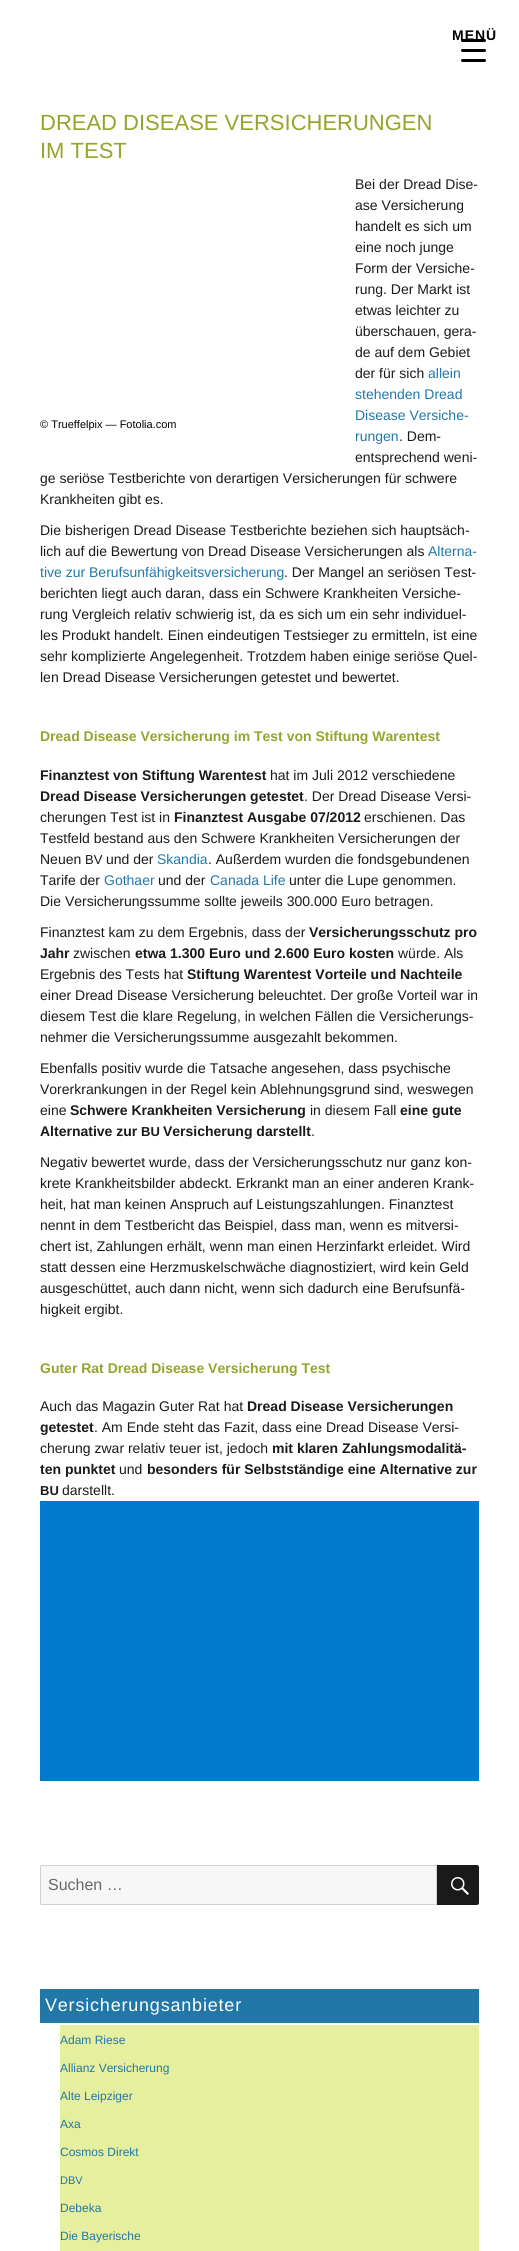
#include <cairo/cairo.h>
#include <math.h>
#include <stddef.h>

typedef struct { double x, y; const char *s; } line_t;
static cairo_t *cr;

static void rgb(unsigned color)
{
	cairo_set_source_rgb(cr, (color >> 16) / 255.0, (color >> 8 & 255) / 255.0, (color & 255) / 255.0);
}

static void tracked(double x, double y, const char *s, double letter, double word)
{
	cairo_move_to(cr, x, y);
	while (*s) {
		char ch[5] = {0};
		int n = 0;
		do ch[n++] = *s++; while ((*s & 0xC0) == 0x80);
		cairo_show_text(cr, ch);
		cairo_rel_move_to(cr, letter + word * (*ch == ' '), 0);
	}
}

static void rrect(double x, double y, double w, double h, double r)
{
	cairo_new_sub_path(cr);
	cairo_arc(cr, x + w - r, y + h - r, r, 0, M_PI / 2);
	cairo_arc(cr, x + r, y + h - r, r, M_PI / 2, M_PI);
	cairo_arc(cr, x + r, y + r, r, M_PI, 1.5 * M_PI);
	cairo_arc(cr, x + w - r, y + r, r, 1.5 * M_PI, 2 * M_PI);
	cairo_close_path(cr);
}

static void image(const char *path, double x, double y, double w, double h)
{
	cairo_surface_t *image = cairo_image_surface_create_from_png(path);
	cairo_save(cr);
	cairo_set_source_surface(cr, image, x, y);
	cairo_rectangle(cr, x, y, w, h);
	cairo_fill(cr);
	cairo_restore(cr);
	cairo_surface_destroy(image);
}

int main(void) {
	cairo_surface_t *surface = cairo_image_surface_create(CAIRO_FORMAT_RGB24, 519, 2251);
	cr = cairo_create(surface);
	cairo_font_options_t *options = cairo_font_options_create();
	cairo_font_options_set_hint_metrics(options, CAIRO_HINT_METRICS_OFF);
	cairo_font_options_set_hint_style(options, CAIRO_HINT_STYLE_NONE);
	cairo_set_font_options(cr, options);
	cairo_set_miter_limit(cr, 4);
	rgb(0xffffff);
	cairo_paint(cr);
	rgb(0x000000);
	rrect(461, 49, 25, 3, 1.5);
	cairo_fill(cr);
	rrect(461, 39, 25, 3, 1.5);
	cairo_fill(cr);
	rrect(461, 59, 25, 3, 1.5);
	cairo_fill(cr);
	rgb(0x007acc);
	cairo_rectangle(cr, 40, 1501, 439, 280);
	cairo_fill(cr);
	rgb(0xf7f7f7);
	cairo_new_path(cr);
	cairo_move_to(cr, 42, 1865.5);
	cairo_line_to(cr, 436.5, 1865.5);
	cairo_line_to(cr, 436.5, 1904.5);
	cairo_line_to(cr, 42, 1904.5);
	cairo_curve_to(cr, 41, 1904.5, 40.5, 1904, 40.5, 1903);
	cairo_line_to(cr, 40.5, 1867);
	cairo_curve_to(cr, 40.5, 1866, 41, 1865.5, 42, 1865.5);
	cairo_close_path(cr);
	cairo_fill_preserve(cr);
	rgb(0xd1d1d1);
	cairo_set_line_width(cr, 1);
	cairo_stroke(cr);
	rgb(0x1a1a1a);
	cairo_new_path(cr);
	cairo_move_to(cr, 437, 1865);
	cairo_line_to(cr, 477, 1865);
	cairo_curve_to(cr, 478, 1865, 479, 1866, 479, 1867);
	cairo_line_to(cr, 479, 1903);
	cairo_curve_to(cr, 479, 1904, 478, 1905, 477, 1905);
	cairo_line_to(cr, 437, 1905);
	cairo_close_path(cr);
	cairo_fill(cr);
	image("img/1.png", 451, 1877, 18, 18);
	rgb(0x2178a8);
	cairo_rectangle(cr, 40, 1989, 439, 34);
	cairo_fill(cr);
	rgb(0xe6ef9d);
	cairo_rectangle(cr, 60, 2025, 419, 226);
	cairo_fill(cr);
	cairo_select_font_face(cr, "Liberation Sans", CAIRO_FONT_SLANT_NORMAL, CAIRO_FONT_WEIGHT_BOLD);
	cairo_set_font_size(cr, 14);
	rgb(0x000000);
	tracked(452, 40, "MENÜ", 1, 0);
	cairo_select_font_face(cr, "Liberation Sans", CAIRO_FONT_SLANT_NORMAL, CAIRO_FONT_WEIGHT_NORMAL);
	cairo_set_font_size(cr, 22);
	rgb(0x97a42b);
	cairo_move_to(cr, 40, 130);
	cairo_show_text(cr, "DREAD DISEASE VERSICHERUNGEN");
	cairo_move_to(cr, 40, 158);
	cairo_show_text(cr, "IM TEST");
	cairo_set_font_size(cr, 14);
	rgb(0x1a1a1a);
	{
		static const line_t items[] = {
			{355, 189, "Bei der Dread Dise-"},
			{355, 210, "ase Versicherung"},
			{355, 231, "handelt es sich um"},
			{355, 252, "eine noch junge"},
			{355, 273, "Form der Versiche-"},
			{355, 294, "rung. Der Markt ist"},
			{355, 315, "etwas leichter zu"},
			{355, 336, "überschauen, gera-"},
			{355, 357, "de auf dem Gebiet"},
			{355, 378, "der für sich"},
		};
		for (size_t i = 0; i < sizeof items / sizeof *items; i++) {
			cairo_move_to(cr, items[i].x, items[i].y);
			cairo_show_text(cr, items[i].s);
		}
	}
	rgb(0x2178a8);
	{
		static const line_t items[] = {
			{428, 378, "allein"},
			{355, 399, "stehenden Dread"},
			{355, 420, "Disease Versiche-"},
			{355, 441, "rungen"},
		};
		for (size_t i = 0; i < sizeof items / sizeof *items; i++) {
			cairo_move_to(cr, items[i].x, items[i].y);
			cairo_show_text(cr, items[i].s);
		}
	}
	rgb(0x1a1a1a);
	{
		static const line_t items[] = {
			{399, 441, ". Dem-"},
			{355, 462, "entsprechend weni-"},
			{40, 483, "ge seriöse Testberichte von derartigen Versicherungen für schwere"},
			{40, 504, "Krankheiten gibt es."},
		};
		for (size_t i = 0; i < sizeof items / sizeof *items; i++) {
			cairo_move_to(cr, items[i].x, items[i].y);
			cairo_show_text(cr, items[i].s);
		}
	}
	cairo_set_font_size(cr, 11);
	rgb(0x000000);
	cairo_move_to(cr, 40, 428);
	cairo_show_text(cr, "© Trueffelpix — Fotolia.com");
	cairo_set_font_size(cr, 14);
	rgb(0x1a1a1a);
	cairo_move_to(cr, 40, 535);
	cairo_show_text(cr, "Die bisherigen Dread Disease Testberichte beziehen sich hauptsäch-");
	cairo_move_to(cr, 40, 556);
	cairo_show_text(cr, "lich auf die Bewertung von Dread Disease Versicherungen als");
	rgb(0x2178a8);
	cairo_move_to(cr, 428, 556);
	cairo_show_text(cr, "Alterna-");
	cairo_move_to(cr, 40, 577);
	cairo_show_text(cr, "tive zur Berufsunfähigkeitsversicherung");
	rgb(0x1a1a1a);
	{
		static const line_t items[] = {
			{284, 577, ". Der Mangel an seriösen Test-"},
			{40, 598, "berichten liegt auch daran, dass ein Schwere Krankheiten Versiche-"},
			{40, 619, "rung Vergleich relativ schwierig ist, da es sich um ein sehr individuel-"},
			{40, 640, "les Produkt handelt. Einen eindeutigen Testsieger zu ermitteln, ist eine"},
			{40, 661, "sehr komplizierte Angelegenheit. Trotzdem haben einige seriöse Quel-"},
			{40, 682, "len Dread Disease Versicherungen getestet und bewertet."},
		};
		for (size_t i = 0; i < sizeof items / sizeof *items; i++) {
			cairo_move_to(cr, items[i].x, items[i].y);
			cairo_show_text(cr, items[i].s);
		}
	}
	cairo_select_font_face(cr, "Liberation Sans", CAIRO_FONT_SLANT_NORMAL, CAIRO_FONT_WEIGHT_BOLD);
	rgb(0x97a42b);
	cairo_move_to(cr, 40, 741);
	cairo_show_text(cr, "Dread Disease Versicherung im Test von Stiftung Warentest");
	rgb(0x1a1a1a);
	cairo_move_to(cr, 40, 780);
	cairo_show_text(cr, "Finanztest von Stiftung Warentest");
	cairo_select_font_face(cr, "Liberation Sans", CAIRO_FONT_SLANT_NORMAL, CAIRO_FONT_WEIGHT_NORMAL);
	cairo_move_to(cr, 270, 780);
	cairo_show_text(cr, "hat im Juli 2012 verschiedene");
	cairo_select_font_face(cr, "Liberation Sans", CAIRO_FONT_SLANT_NORMAL, CAIRO_FONT_WEIGHT_BOLD);
	cairo_move_to(cr, 40, 801);
	cairo_show_text(cr, "Dread Disease Versicherungen getestet");
	cairo_select_font_face(cr, "Liberation Sans", CAIRO_FONT_SLANT_NORMAL, CAIRO_FONT_WEIGHT_NORMAL);
	cairo_move_to(cr, 304, 801);
	cairo_show_text(cr, ". Der Dread Disease Versi-");
	cairo_move_to(cr, 40, 822);
	cairo_show_text(cr, "cherungen Test ist in");
	cairo_select_font_face(cr, "Liberation Sans", CAIRO_FONT_SLANT_NORMAL, CAIRO_FONT_WEIGHT_BOLD);
	cairo_move_to(cr, 174, 822);
	cairo_show_text(cr, "Finanztest Ausgabe 07/2012");
	cairo_select_font_face(cr, "Liberation Sans", CAIRO_FONT_SLANT_NORMAL, CAIRO_FONT_WEIGHT_NORMAL);
	{
		static const line_t items[] = {
			{364, 822, "erschienen. Das"},
			{40, 843, "Testfeld bestand aus den Schwere Krankheiten Versicherungen der"},
			{40, 864, "Neuen"},
		};
		for (size_t i = 0; i < sizeof items / sizeof *items; i++) {
			cairo_move_to(cr, items[i].x, items[i].y);
			cairo_show_text(cr, items[i].s);
		}
	}
	cairo_set_font_size(cr, 13);
	cairo_move_to(cr, 85, 864);
	cairo_show_text(cr, "BV");
	cairo_set_font_size(cr, 14);
	cairo_move_to(cr, 106, 864);
	cairo_show_text(cr, "und der");
	rgb(0x2178a8);
	cairo_move_to(cr, 157, 864);
	cairo_show_text(cr, "Skandia");
	rgb(0x1a1a1a);
	cairo_move_to(cr, 208, 864);
	cairo_show_text(cr, ". Außerdem wurden die fondsgebundenen");
	cairo_move_to(cr, 40, 885);
	cairo_show_text(cr, "Tarife der");
	rgb(0x2178a8);
	cairo_move_to(cr, 104, 885);
	cairo_show_text(cr, "Gothaer");
	rgb(0x1a1a1a);
	cairo_move_to(cr, 158, 885);
	cairo_show_text(cr, "und der");
	rgb(0x2178a8);
	cairo_move_to(cr, 210, 885);
	cairo_show_text(cr, "Canada Life");
	rgb(0x1a1a1a);
	{
		static const line_t items[] = {
			{289, 885, "unter die Lupe genommen."},
			{40, 906, "Die Versicherungssumme sollte jeweils 300.000 Euro betragen."},
			{40, 937, "Finanztest kam zu dem Ergebnis, dass der"},
		};
		for (size_t i = 0; i < sizeof items / sizeof *items; i++) {
			cairo_move_to(cr, items[i].x, items[i].y);
			cairo_show_text(cr, items[i].s);
		}
	}
	cairo_select_font_face(cr, "Liberation Sans", CAIRO_FONT_SLANT_NORMAL, CAIRO_FONT_WEIGHT_BOLD);
	cairo_move_to(cr, 309, 937);
	cairo_show_text(cr, "Versicherungsschutz pro");
	cairo_move_to(cr, 40, 958);
	cairo_show_text(cr, "Jahr");
	cairo_select_font_face(cr, "Liberation Sans", CAIRO_FONT_SLANT_NORMAL, CAIRO_FONT_WEIGHT_NORMAL);
	cairo_move_to(cr, 73, 958);
	cairo_show_text(cr, "zwischen");
	cairo_select_font_face(cr, "Liberation Sans", CAIRO_FONT_SLANT_NORMAL, CAIRO_FONT_WEIGHT_BOLD);
	cairo_move_to(cr, 135, 958);
	cairo_show_text(cr, "etwa 1.300 Euro und 2.600 Euro kosten");
	cairo_select_font_face(cr, "Liberation Sans", CAIRO_FONT_SLANT_NORMAL, CAIRO_FONT_WEIGHT_NORMAL);
	cairo_move_to(cr, 398, 958);
	cairo_show_text(cr, "würde. Als");
	cairo_move_to(cr, 40, 979);
	cairo_show_text(cr, "Ergebnis des Tests hat");
	cairo_select_font_face(cr, "Liberation Sans", CAIRO_FONT_SLANT_NORMAL, CAIRO_FONT_WEIGHT_BOLD);
	cairo_move_to(cr, 187, 979);
	cairo_show_text(cr, "Stiftung Warentest Vorteile und Nachteile");
	cairo_select_font_face(cr, "Liberation Sans", CAIRO_FONT_SLANT_NORMAL, CAIRO_FONT_WEIGHT_NORMAL);
	{
		static const line_t items[] = {
			{40, 1000, "einer Dread Disease Versicherung beleuchtet. Der große Vorteil war in"},
			{40, 1021, "diesem Test die klare Regelung, in welchen Fällen die Versicherungs-"},
			{40, 1042, "nehmer die Versicherungssumme ausgezahlt bekommen."},
			{40, 1073, "Ebenfalls positiv wurde die Tatsache angesehen, dass psychische"},
			{40, 1094, "Vorerkrankungen in der Regel kein Ablehnungsgrund sind, weswegen"},
			{40, 1115, "eine"},
		};
		for (size_t i = 0; i < sizeof items / sizeof *items; i++) {
			cairo_move_to(cr, items[i].x, items[i].y);
			cairo_show_text(cr, items[i].s);
		}
	}
	cairo_select_font_face(cr, "Liberation Sans", CAIRO_FONT_SLANT_NORMAL, CAIRO_FONT_WEIGHT_BOLD);
	cairo_move_to(cr, 70, 1115);
	cairo_show_text(cr, "Schwere Krankheiten Versicherung");
	cairo_select_font_face(cr, "Liberation Sans", CAIRO_FONT_SLANT_NORMAL, CAIRO_FONT_WEIGHT_NORMAL);
	cairo_move_to(cr, 310, 1115);
	cairo_show_text(cr, "in diesem Fall");
	cairo_select_font_face(cr, "Liberation Sans", CAIRO_FONT_SLANT_NORMAL, CAIRO_FONT_WEIGHT_BOLD);
	cairo_move_to(cr, 400, 1115);
	cairo_show_text(cr, "eine gute");
	cairo_move_to(cr, 40, 1136);
	cairo_show_text(cr, "Alternative zur");
	cairo_set_font_size(cr, 13);
	cairo_move_to(cr, 141, 1136);
	cairo_show_text(cr, "BU");
	cairo_set_font_size(cr, 14);
	cairo_move_to(cr, 163, 1136);
	cairo_show_text(cr, "Versicherung darstellt");
	cairo_select_font_face(cr, "Liberation Sans", CAIRO_FONT_SLANT_NORMAL, CAIRO_FONT_WEIGHT_NORMAL);
	{
		static const line_t items[] = {
			{311, 1136, "."},
			{40, 1167, "Negativ bewertet wurde, dass der Versicherungsschutz nur ganz kon-"},
			{40, 1188, "krete Krankheitsbilder abdeckt. Erkrankt man an einer anderen Krank-"},
			{40, 1209, "heit, hat man keinen Anspruch auf Leistungszahlungen. Finanztest"},
			{40, 1230, "nennt in dem Testbericht das Beispiel, dass man, wenn es mitversi-"},
			{40, 1251, "chert ist, Zahlungen erhält, wenn man einen Herzinfarkt erleidet. Wird"},
			{40, 1272, "statt dessen eine Herzmuskelschwäche diagnostiziert, wird kein Geld"},
			{40, 1293, "ausgeschüttet, auch dann nicht, wenn sich dadurch eine Berufsunfä-"},
			{40, 1314, "higkeit ergibt."},
		};
		for (size_t i = 0; i < sizeof items / sizeof *items; i++) {
			cairo_move_to(cr, items[i].x, items[i].y);
			cairo_show_text(cr, items[i].s);
		}
	}
	cairo_select_font_face(cr, "Liberation Sans", CAIRO_FONT_SLANT_NORMAL, CAIRO_FONT_WEIGHT_BOLD);
	rgb(0x97a42b);
	cairo_move_to(cr, 40, 1373);
	cairo_show_text(cr, "Guter Rat Dread Disease Versicherung Test");
	cairo_select_font_face(cr, "Liberation Sans", CAIRO_FONT_SLANT_NORMAL, CAIRO_FONT_WEIGHT_NORMAL);
	rgb(0x1a1a1a);
	cairo_move_to(cr, 40, 1411);
	cairo_show_text(cr, "Auch das Magazin Guter Rat hat");
	cairo_select_font_face(cr, "Liberation Sans", CAIRO_FONT_SLANT_NORMAL, CAIRO_FONT_WEIGHT_BOLD);
	cairo_move_to(cr, 247, 1411);
	cairo_show_text(cr, "Dread Disease Versicherungen");
	cairo_move_to(cr, 40, 1432);
	cairo_show_text(cr, "getestet");
	cairo_select_font_face(cr, "Liberation Sans", CAIRO_FONT_SLANT_NORMAL, CAIRO_FONT_WEIGHT_NORMAL);
	cairo_move_to(cr, 94, 1432);
	cairo_show_text(cr, ". Am Ende steht das Fazit, dass eine Dread Disease Versi-");
	cairo_move_to(cr, 40, 1453);
	cairo_show_text(cr, "cherung zwar relativ teuer ist, jedoch");
	cairo_select_font_face(cr, "Liberation Sans", CAIRO_FONT_SLANT_NORMAL, CAIRO_FONT_WEIGHT_BOLD);
	cairo_move_to(cr, 272, 1453);
	cairo_show_text(cr, "mit klaren Zahlungsmodalitä-");
	cairo_move_to(cr, 40, 1474);
	cairo_show_text(cr, "ten punktet");
	cairo_select_font_face(cr, "Liberation Sans", CAIRO_FONT_SLANT_NORMAL, CAIRO_FONT_WEIGHT_NORMAL);
	cairo_move_to(cr, 119, 1474);
	cairo_show_text(cr, "und");
	cairo_select_font_face(cr, "Liberation Sans", CAIRO_FONT_SLANT_NORMAL, CAIRO_FONT_WEIGHT_BOLD);
	cairo_move_to(cr, 147, 1474);
	cairo_show_text(cr, "besonders für Selbstständige eine Alternative zur");
	cairo_set_font_size(cr, 13);
	cairo_move_to(cr, 40, 1495);
	cairo_show_text(cr, "BU");
	cairo_select_font_face(cr, "Liberation Sans", CAIRO_FONT_SLANT_NORMAL, CAIRO_FONT_WEIGHT_NORMAL);
	cairo_set_font_size(cr, 14);
	cairo_move_to(cr, 62, 1495);
	cairo_show_text(cr, "darstellt.");
	cairo_set_font_size(cr, 16);
	rgb(0x686868);
	cairo_move_to(cr, 48, 1890);
	cairo_show_text(cr, "Suchen …");
	cairo_set_font_size(cr, 18);
	rgb(0xffffff);
	tracked(45, 2011, "Versicherungsanbieter", 0.8, 0);
	cairo_set_font_size(cr, 12);
	rgb(0x2178a8);
	{
		static const line_t items[] = {
			{60, 2044, "Adam Riese"},
			{60, 2072, "Allianz Versicherung"},
			{60, 2100, "Alte Leipziger"},
			{60, 2128, "Axa"},
			{60, 2156, "Cosmos Direkt"},
		};
		for (size_t i = 0; i < sizeof items / sizeof *items; i++) {
			cairo_move_to(cr, items[i].x, items[i].y);
			cairo_show_text(cr, items[i].s);
		}
	}
	cairo_set_font_size(cr, 11);
	cairo_move_to(cr, 60, 2184);
	cairo_show_text(cr, "DBV");
	cairo_set_font_size(cr, 12);
	cairo_move_to(cr, 60, 2212);
	cairo_show_text(cr, "Debeka");
	cairo_move_to(cr, 60, 2240);
	cairo_show_text(cr, "Die Bayerische");
	cairo_surface_write_to_png(surface, "page.png");
	cairo_font_options_destroy(options);
	cairo_destroy(cr);
	cairo_surface_destroy(surface);
	return 0;
}
